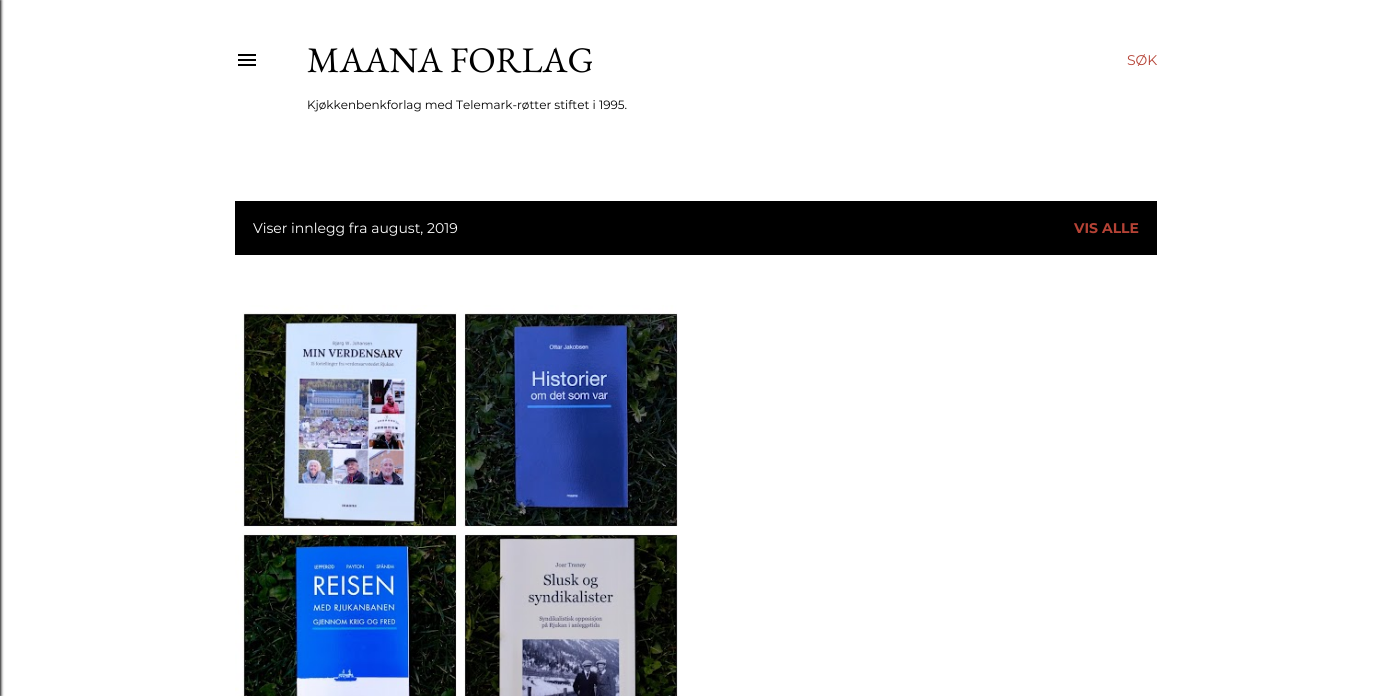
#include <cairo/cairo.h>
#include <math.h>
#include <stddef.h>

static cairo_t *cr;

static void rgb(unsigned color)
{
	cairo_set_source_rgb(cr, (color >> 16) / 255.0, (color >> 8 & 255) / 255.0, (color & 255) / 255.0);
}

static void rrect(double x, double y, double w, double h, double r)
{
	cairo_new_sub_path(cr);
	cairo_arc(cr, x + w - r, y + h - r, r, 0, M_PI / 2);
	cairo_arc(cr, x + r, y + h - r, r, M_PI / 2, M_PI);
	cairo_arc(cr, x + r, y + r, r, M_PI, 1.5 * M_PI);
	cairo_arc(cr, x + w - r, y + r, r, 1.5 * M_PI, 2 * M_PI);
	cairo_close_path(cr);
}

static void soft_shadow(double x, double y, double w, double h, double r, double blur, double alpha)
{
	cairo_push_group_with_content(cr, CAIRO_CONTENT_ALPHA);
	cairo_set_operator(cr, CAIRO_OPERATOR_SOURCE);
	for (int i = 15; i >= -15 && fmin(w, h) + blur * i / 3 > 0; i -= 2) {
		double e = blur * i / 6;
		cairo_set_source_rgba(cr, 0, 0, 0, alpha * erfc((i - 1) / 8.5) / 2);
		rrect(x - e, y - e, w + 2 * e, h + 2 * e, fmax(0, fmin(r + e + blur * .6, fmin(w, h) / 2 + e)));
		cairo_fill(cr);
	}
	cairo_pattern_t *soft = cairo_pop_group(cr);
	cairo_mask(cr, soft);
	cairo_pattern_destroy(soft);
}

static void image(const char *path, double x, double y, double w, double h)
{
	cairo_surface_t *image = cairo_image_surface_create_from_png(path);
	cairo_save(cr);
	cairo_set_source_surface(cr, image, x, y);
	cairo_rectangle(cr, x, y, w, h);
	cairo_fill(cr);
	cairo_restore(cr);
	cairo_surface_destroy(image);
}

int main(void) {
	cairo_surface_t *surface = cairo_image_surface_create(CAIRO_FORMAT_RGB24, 1392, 696);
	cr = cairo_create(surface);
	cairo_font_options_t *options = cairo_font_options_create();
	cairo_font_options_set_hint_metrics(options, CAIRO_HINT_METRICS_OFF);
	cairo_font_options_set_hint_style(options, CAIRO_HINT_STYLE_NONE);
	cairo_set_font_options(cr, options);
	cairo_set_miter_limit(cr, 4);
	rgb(0xffffff);
	cairo_paint(cr);
	rgb(0x000000);
	soft_shadow(-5, 0, 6, 696, 0, 1.5, 1);
	image("img/1.png", 238, 54, 18, 12);
	rgb(0x000000);
	cairo_rectangle(cr, 235, 201, 922, 54);
	cairo_fill(cr);
	image("img/2.png", 235, 305, 443, 391);
	cairo_select_font_face(cr, "EB Garamond", CAIRO_FONT_SLANT_NORMAL, CAIRO_FONT_WEIGHT_NORMAL);
	cairo_set_font_size(cr, 36);
	cairo_move_to(cr, 307, 72);
	cairo_show_text(cr, "MAANA FORLAG");
	cairo_select_font_face(cr, "Montserrat", CAIRO_FONT_SLANT_NORMAL, CAIRO_FONT_WEIGHT_NORMAL);
	cairo_set_font_size(cr, 12);
	cairo_move_to(cr, 307, 109);
	cairo_show_text(cr, "Kjøkkenbenkforlag med Telemark-røtter stiftet i 1995.");
	cairo_set_font_size(cr, 14);
	rgb(0xb54235);
	cairo_move_to(cr, 1127, 65);
	cairo_show_text(cr, "SØK");
	rgb(0xfefefe);
	cairo_move_to(cr, 253, 233);
	cairo_show_text(cr, "Viser innlegg fra august, 2019");
	cairo_select_font_face(cr, "Montserrat", CAIRO_FONT_SLANT_NORMAL, CAIRO_FONT_WEIGHT_BOLD);
	rgb(0xb54235);
	cairo_move_to(cr, 1074, 233);
	cairo_show_text(cr, "VIS ALLE");
	cairo_surface_write_to_png(surface, "page.png");
	cairo_font_options_destroy(options);
	cairo_destroy(cr);
	cairo_surface_destroy(surface);
	return 0;
}
